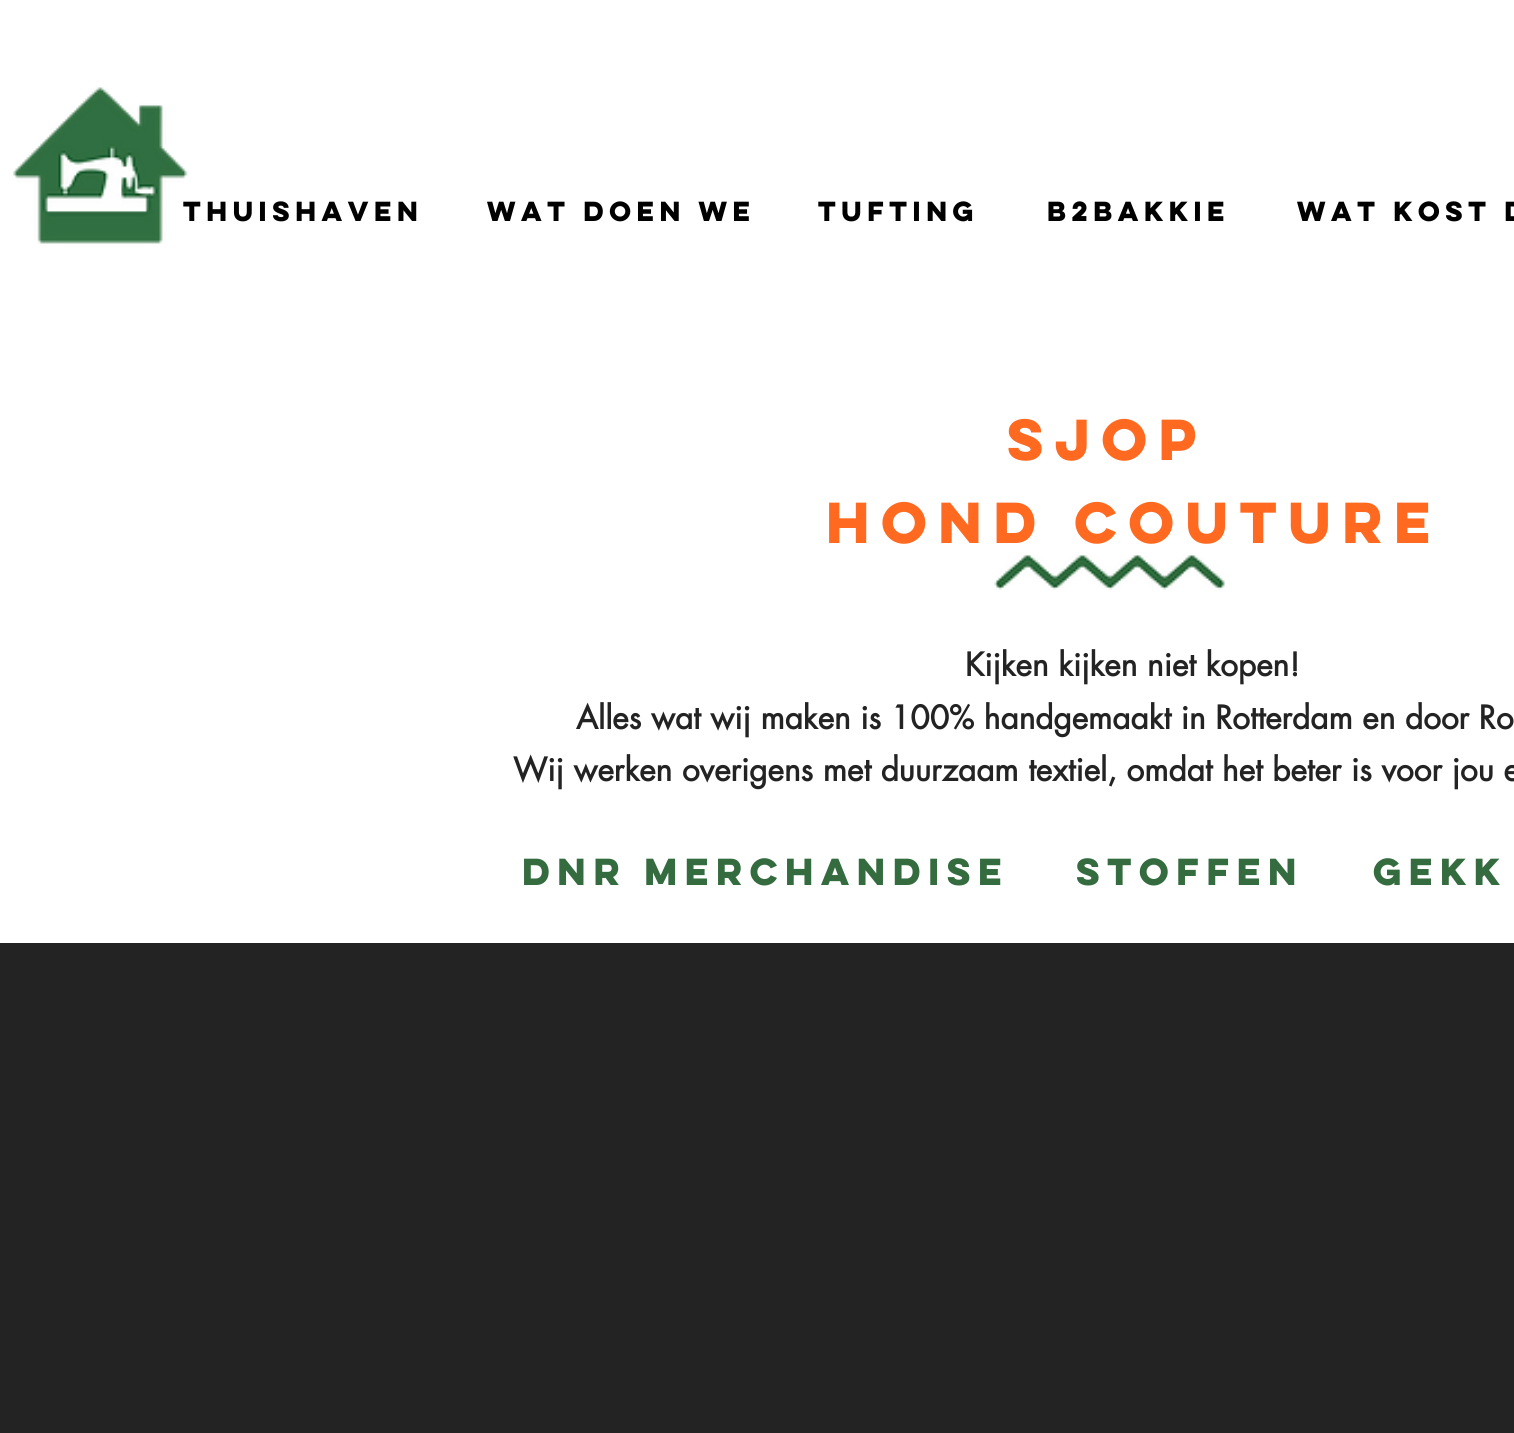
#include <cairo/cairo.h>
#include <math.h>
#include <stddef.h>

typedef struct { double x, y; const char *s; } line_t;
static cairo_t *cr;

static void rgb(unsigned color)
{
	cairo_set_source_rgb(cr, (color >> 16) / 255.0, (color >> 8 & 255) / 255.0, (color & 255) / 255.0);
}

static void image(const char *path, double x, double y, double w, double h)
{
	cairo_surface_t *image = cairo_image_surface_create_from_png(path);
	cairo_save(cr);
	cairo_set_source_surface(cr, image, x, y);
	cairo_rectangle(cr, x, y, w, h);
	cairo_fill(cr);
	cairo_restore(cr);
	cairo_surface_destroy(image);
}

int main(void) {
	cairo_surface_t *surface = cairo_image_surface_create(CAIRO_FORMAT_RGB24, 1514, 1433);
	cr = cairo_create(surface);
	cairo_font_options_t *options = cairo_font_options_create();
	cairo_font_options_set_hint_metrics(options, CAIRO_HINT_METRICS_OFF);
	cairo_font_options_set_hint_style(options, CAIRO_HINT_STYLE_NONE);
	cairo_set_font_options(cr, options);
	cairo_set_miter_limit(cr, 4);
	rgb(0xffffff);
	cairo_paint(cr);
	image("img/2.png", 994, 553, 231, 37);
	rgb(0x242323);
	cairo_rectangle(cr, 0, 943, 1514, 490);
	cairo_fill(cr);
	cairo_select_font_face(cr, "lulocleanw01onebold", CAIRO_FONT_SLANT_NORMAL, CAIRO_FONT_WEIGHT_BOLD);
	cairo_set_font_size(cr, 24.75);
	rgb(0x000000);
	cairo_move_to(cr, 183, 221);
	cairo_show_text(cr, "THUISHAVEN");
	image("img/1.png", 13, 87, 175, 157);
	{
		static const line_t items[] = {
			{487, 221, "WAT DOEN WE"},
			{818, 221, "TUFTING"},
			{1047, 221, "B2BAKKIE"},
			{1297, 221, "WAT KOST D"},
		};
		for (size_t i = 0; i < sizeof items / sizeof *items; i++) {
			cairo_move_to(cr, items[i].x, items[i].y);
			cairo_show_text(cr, items[i].s);
		}
	}
	cairo_set_font_size(cr, 51.75);
	rgb(0xff6920);
	cairo_move_to(cr, 1007, 460);
	cairo_show_text(cr, "SJOP");
	cairo_move_to(cr, 826, 543);
	cairo_show_text(cr, "Hond couture");
	cairo_select_font_face(cr, "futura", CAIRO_FONT_SLANT_NORMAL, CAIRO_FONT_WEIGHT_BOLD);
	cairo_set_font_size(cr, 31.5);
	rgb(0x242323);
	{
		static const line_t items[] = {
			{965, 676, "Kijken kijken niet kopen!"},
			{576, 729, "Alles wat wij maken is 100% handgemaakt in Rotterdam en door Ro"},
			{513, 781, "Wij werken overigens met duurzaam textiel, omdat het beter is voor jou e"},
		};
		for (size_t i = 0; i < sizeof items / sizeof *items; i++) {
			cairo_move_to(cr, items[i].x, items[i].y);
			cairo_show_text(cr, items[i].s);
		}
	}
	cairo_select_font_face(cr, "lulocleanw01onebold", CAIRO_FONT_SLANT_NORMAL, CAIRO_FONT_WEIGHT_BOLD);
	cairo_set_font_size(cr, 33.75);
	rgb(0x346c3f);
	{
		static const line_t items[] = {
			{522, 885, "DNR Merchandise"},
			{1076, 885, "Stoffen"},
			{1373, 885, "Gekk"},
		};
		for (size_t i = 0; i < sizeof items / sizeof *items; i++) {
			cairo_move_to(cr, items[i].x, items[i].y);
			cairo_show_text(cr, items[i].s);
		}
	}
	cairo_surface_write_to_png(surface, "page.png");
	cairo_font_options_destroy(options);
	cairo_destroy(cr);
	cairo_surface_destroy(surface);
	return 0;
}
